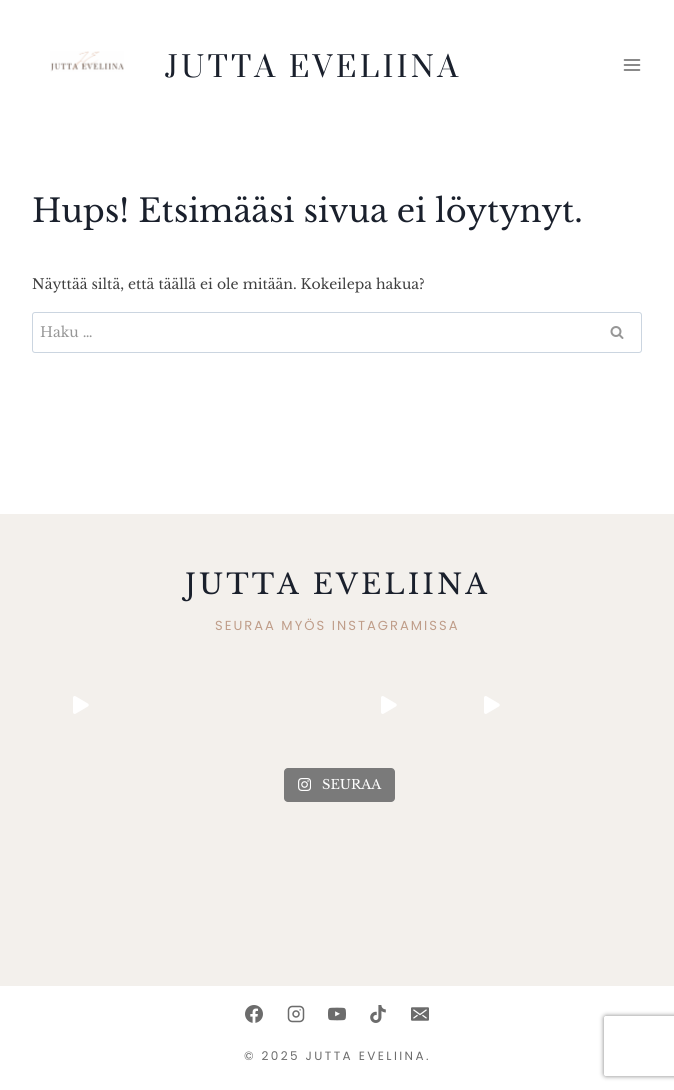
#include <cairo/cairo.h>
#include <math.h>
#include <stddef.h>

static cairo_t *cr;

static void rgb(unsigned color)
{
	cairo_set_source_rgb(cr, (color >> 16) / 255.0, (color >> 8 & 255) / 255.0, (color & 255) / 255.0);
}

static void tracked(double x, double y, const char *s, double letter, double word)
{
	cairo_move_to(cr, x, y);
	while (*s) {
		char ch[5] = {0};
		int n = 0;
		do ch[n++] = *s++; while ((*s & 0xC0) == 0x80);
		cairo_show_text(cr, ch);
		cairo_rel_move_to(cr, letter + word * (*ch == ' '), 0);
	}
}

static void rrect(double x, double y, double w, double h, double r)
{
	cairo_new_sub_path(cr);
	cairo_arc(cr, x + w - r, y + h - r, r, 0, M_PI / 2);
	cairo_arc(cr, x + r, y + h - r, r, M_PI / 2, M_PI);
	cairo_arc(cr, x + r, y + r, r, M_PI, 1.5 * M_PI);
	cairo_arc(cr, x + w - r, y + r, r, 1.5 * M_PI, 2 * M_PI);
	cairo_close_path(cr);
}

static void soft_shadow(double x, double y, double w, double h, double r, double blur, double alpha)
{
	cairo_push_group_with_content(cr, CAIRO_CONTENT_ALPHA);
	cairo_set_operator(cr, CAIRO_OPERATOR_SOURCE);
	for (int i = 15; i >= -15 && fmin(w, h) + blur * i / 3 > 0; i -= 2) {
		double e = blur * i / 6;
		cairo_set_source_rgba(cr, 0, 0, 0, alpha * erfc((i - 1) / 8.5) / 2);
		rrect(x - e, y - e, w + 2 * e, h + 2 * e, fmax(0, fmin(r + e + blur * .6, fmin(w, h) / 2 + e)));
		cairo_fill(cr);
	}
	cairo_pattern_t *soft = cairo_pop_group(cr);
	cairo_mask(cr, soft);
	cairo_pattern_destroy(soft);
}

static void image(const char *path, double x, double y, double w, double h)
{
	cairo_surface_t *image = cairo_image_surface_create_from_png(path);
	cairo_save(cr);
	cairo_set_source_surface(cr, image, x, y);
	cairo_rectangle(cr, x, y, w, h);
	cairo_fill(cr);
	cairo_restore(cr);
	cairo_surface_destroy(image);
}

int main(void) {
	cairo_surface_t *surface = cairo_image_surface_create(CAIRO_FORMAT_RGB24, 674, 1090);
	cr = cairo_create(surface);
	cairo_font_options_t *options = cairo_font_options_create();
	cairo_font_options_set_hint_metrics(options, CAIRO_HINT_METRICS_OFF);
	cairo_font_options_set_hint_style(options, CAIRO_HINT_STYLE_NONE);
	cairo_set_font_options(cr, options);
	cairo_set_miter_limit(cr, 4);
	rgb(0xffffff);
	cairo_paint(cr);
	image("img/1.png", 50, 51, 74, 21);
	image("img/2.png", 623, 59, 18, 12);
	rrect(32.5, 312.5, 609, 40, 2.5);
	rgb(0xcbd5e0);
	cairo_set_line_width(cr, 1);
	cairo_stroke(cr);
	image("img/3.png", 610, 326, 14, 13);
	rgb(0xf3f0ec);
	cairo_rectangle(cr, 0, 514, 674, 472);
	cairo_fill(cr);
	image("img/4.png", 73, 696, 16, 18);
	image("img/4.png", 381, 696, 16, 18);
	image("img/4.png", 484, 696, 16, 18);
	rgb(0x7a7a7a);
	rrect(284, 768, 111, 34, 4);
	cairo_fill(cr);
	image("img/5.png", 298, 778, 13, 13);
	image("img/6.png", 245, 1005, 18, 18);
	image("img/7.png", 287, 1005, 18, 18);
	image("img/8.png", 328, 1007, 18, 14);
	image("img/9.png", 370, 1005, 16, 18);
	image("img/10.png", 411, 1007, 18, 14);
	cairo_save(cr);
	cairo_set_fill_rule(cr, CAIRO_FILL_RULE_EVEN_ODD);
	cairo_new_path(cr);
	cairo_move_to(cr, 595, 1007);
	cairo_line_to(cr, 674, 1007);
	cairo_line_to(cr, 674, 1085);
	cairo_line_to(cr, 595, 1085);
	cairo_close_path(cr);
	cairo_move_to(cr, 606, 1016);
	cairo_line_to(cr, 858, 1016);
	cairo_curve_to(cr, 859, 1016, 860, 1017, 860, 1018);
	cairo_line_to(cr, 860, 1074);
	cairo_curve_to(cr, 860, 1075, 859, 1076, 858, 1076);
	cairo_line_to(cr, 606, 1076);
	cairo_curve_to(cr, 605, 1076, 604, 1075, 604, 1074);
	cairo_line_to(cr, 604, 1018);
	cairo_curve_to(cr, 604, 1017, 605, 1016, 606, 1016);
	cairo_close_path(cr);
	cairo_clip(cr);
	rgb(0x808080);
	soft_shadow(604, 1016, 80, 60, 2, 2.5, 1);
	cairo_restore(cr);
	cairo_select_font_face(cr, "Suranna", CAIRO_FONT_SLANT_NORMAL, CAIRO_FONT_WEIGHT_NORMAL);
	cairo_set_font_size(cr, 36);
	rgb(0x1a202c);
	tracked(165, 77, "JUTTA EVELIINA", 3.6, 0);
	cairo_select_font_face(cr, "Libre Baskerville", CAIRO_FONT_SLANT_NORMAL, CAIRO_FONT_WEIGHT_NORMAL);
	cairo_set_font_size(cr, 32);
	cairo_move_to(cr, 32, 222);
	cairo_show_text(cr, "Hups! Etsimääsi sivua ei löytynyt.");
	cairo_set_font_size(cr, 14);
	rgb(0x3f3f3f);
	cairo_move_to(cr, 32, 289);
	cairo_show_text(cr, "Näyttää siltä, että täällä ei ole mitään. Kokeilepa hakua?");
	rgb(0x979797);
	cairo_move_to(cr, 40, 337);
	cairo_show_text(cr, "Haku …");
	cairo_set_font_size(cr, 28);
	rgb(0x1a202c);
	tracked(185, 594, "JUTTA EVELIINA", 3, 0);
	cairo_select_font_face(cr, "Poppins", CAIRO_FONT_SLANT_NORMAL, CAIRO_FONT_WEIGHT_NORMAL);
	cairo_set_font_size(cr, 13.1);
	rgb(0xbf9d89);
	tracked(215, 630, "SEURAA MYÖS INSTAGRAMISSA", 2, 0);
	cairo_select_font_face(cr, "Libre Baskerville", CAIRO_FONT_SLANT_NORMAL, CAIRO_FONT_WEIGHT_NORMAL);
	cairo_set_font_size(cr, 13);
	rgb(0xffffff);
	cairo_move_to(cr, 322, 789);
	cairo_show_text(cr, "SEURAA");
	cairo_select_font_face(cr, "Poppins", CAIRO_FONT_SLANT_NORMAL, CAIRO_FONT_WEIGHT_NORMAL);
	cairo_set_font_size(cr, 12);
	rgb(0x6c6c6c);
	tracked(244, 1060, "© 2025 JUTTA EVELIINA.", 2.4, 0);
	cairo_surface_write_to_png(surface, "page.png");
	cairo_font_options_destroy(options);
	cairo_destroy(cr);
	cairo_surface_destroy(surface);
	return 0;
}
